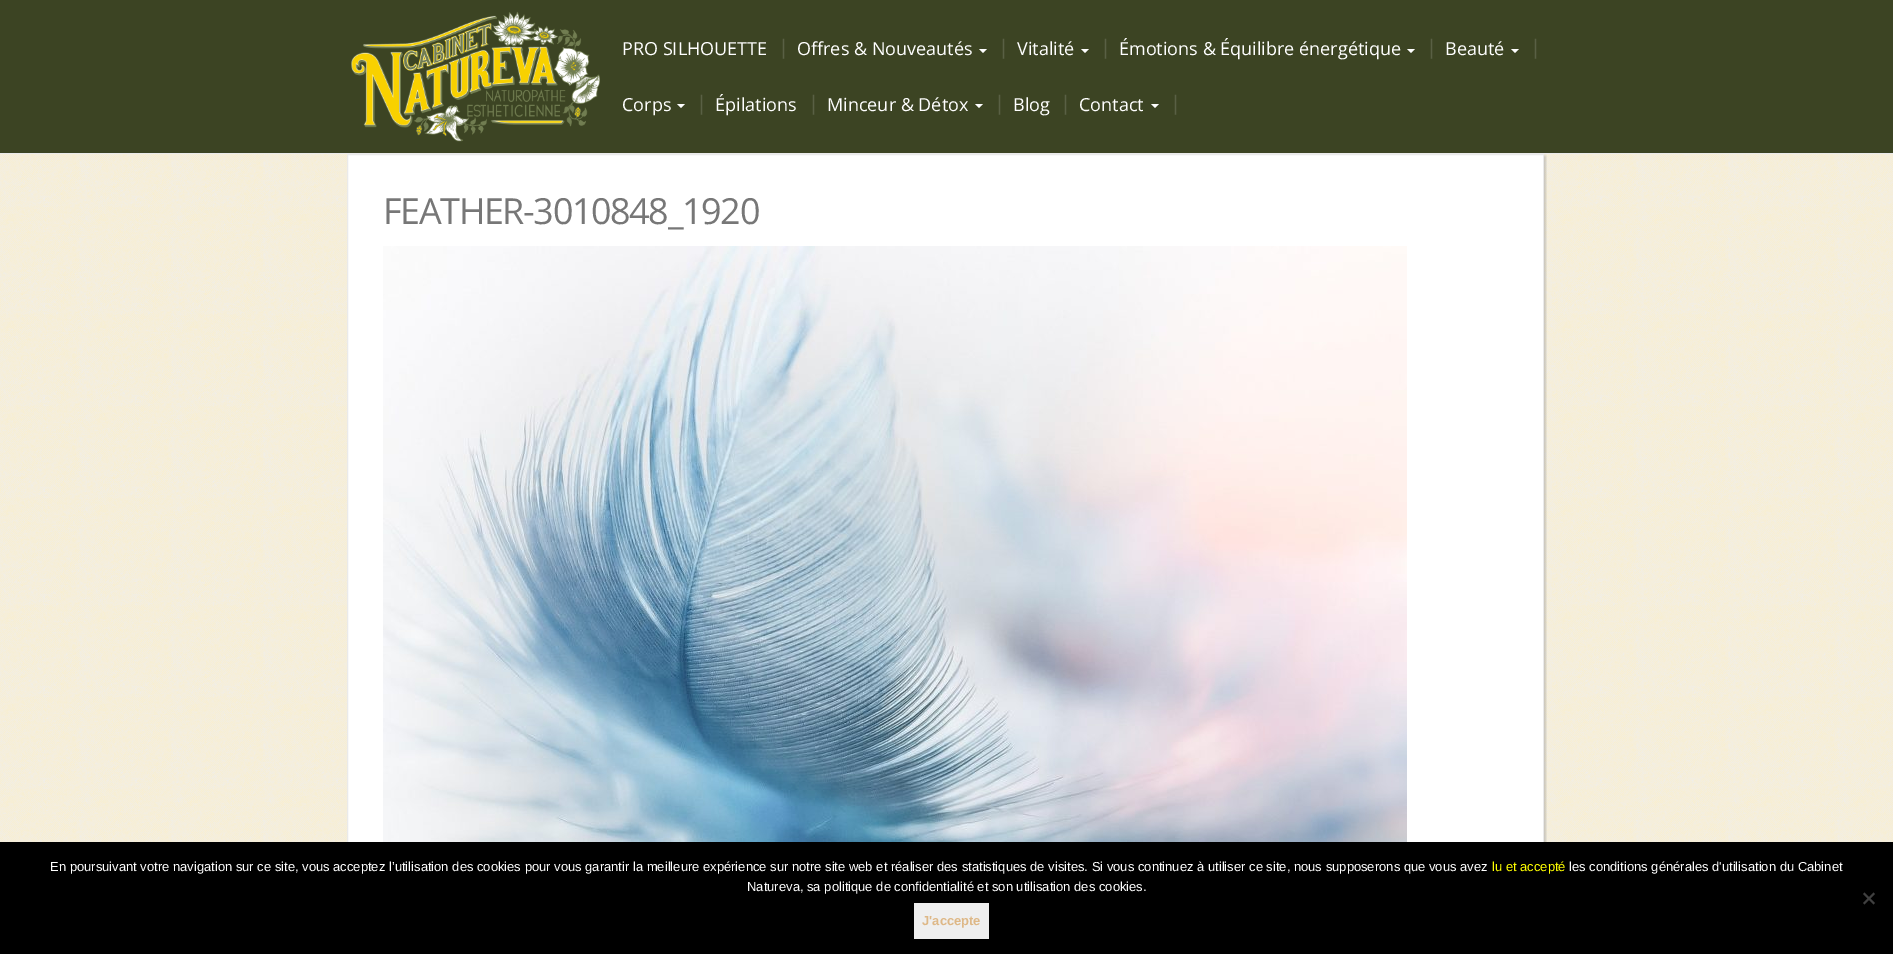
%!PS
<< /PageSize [1893 954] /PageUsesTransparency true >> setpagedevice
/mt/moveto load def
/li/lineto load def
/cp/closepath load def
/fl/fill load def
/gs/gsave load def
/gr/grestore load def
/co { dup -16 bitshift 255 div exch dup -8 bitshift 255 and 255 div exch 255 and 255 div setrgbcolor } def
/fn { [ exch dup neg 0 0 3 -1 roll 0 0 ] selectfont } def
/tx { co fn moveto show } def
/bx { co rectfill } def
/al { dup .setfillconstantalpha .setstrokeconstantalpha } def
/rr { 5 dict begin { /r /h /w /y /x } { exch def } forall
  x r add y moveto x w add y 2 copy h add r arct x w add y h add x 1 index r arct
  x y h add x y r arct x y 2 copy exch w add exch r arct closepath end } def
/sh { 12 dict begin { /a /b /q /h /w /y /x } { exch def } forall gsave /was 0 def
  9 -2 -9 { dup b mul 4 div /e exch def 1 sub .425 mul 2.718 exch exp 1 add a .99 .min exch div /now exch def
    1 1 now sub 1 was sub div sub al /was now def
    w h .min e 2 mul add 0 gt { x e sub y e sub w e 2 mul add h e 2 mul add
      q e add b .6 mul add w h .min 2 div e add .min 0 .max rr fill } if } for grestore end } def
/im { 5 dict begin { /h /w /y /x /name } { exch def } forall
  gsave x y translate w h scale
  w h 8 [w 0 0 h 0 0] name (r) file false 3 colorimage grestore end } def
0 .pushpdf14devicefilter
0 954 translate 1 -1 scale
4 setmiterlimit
0 0 1893 954 16#FFFFFF bx
(media/1.raw) 0 154 1893 688 im
0 0 1893 153 16#3C4423 bx
0 153 1893 1 16#EAEAEA bx
(media/2.raw) 351 11 249 131 im
16#FFFFFF co
979 49 mt 987 49 li 983 53 li cp fl
1081 49 mt 1089 49 li 1085 53 li cp fl
1407 49 mt 1415 49 li 1411 53 li cp fl
1511 49 mt 1519 49 li 1515 53 li cp fl
677 104 mt 685 104 li 681 108 li cp fl
975 104 mt 983 104 li 979 108 li cp fl
1151 104 mt 1159 104 li 1155 108 li cp fl
gs
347 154 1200 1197 rectclip
16#000000 co
347 157 1197 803 0 2 .5 sh
gr
348 155 1195 687 16#FFFFFF bx
16#EAEAEA co
347.5 154.5 1196 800 rectstroke
(media/3.raw) 383 246 1024 596 im
0 842 1893 112 16#000000 bx
16#404040 co
1873.5 892.5 mt 1875 894 li 1864.5 904.5 li 1863 903 li cp fl
1863 894 mt 1864.5 892.5 li 1875 903 li 1873.5 904.5 li cp fl
914 903 75 36 16#EFEFEF bx
(PRO SILHOUETTE) 622 55 /OpenSans-Regular 18 16#FFFFFF tx
(|) 778 54 /OpenSans-Regular 20 16#596044 tx
(Offres & Nouveautés) 797 55 /OpenSans-Regular 18 16#FFFFFF tx
(|) 998 54 /OpenSans-Regular 20 16#596044 tx
(Vitalité) 1017 55 /OpenSans-Regular 18 16#FFFFFF tx
(|) 1100 54 /OpenSans-Regular 20 16#596044 tx
(Émotions & Équilibre énergétique) 1119 55 /OpenSans-Regular 18 16#FFFFFF tx
(|) 1426 54 /OpenSans-Regular 20 16#596044 tx
(Beauté) 1445 55 /OpenSans-Regular 18 16#FFFFFF tx
(|) 1530 54 /OpenSans-Regular 20 16#596044 tx
(Corps) 622 111 /OpenSans-Regular 18 16#FFFFFF tx
(|) 696 110 /OpenSans-Regular 20 16#596044 tx
(Épilations) 715 111 /OpenSans-Regular 18 16#FFFFFF tx
(|) 808 110 /OpenSans-Regular 20 16#596044 tx
(Minceur & Détox) 827 111 /OpenSans-Regular 18 16#FFFFFF tx
(|) 994 110 /OpenSans-Regular 20 16#596044 tx
(Blog) 1013 111 /OpenSans-Regular 18 16#FFFFFF tx
(|) 1060 110 /OpenSans-Regular 20 16#596044 tx
(Contact) 1079 111 /OpenSans-Regular 18 16#FFFFFF tx
(|) 1170 110 /OpenSans-Regular 20 16#596044 tx
/OpenSans-Regular 36 fn
16#777777 co
383 224 mt -1.4 0 (FEATHER-3010848_1920) ashow
(En poursuivant votre navigation sur ce site, vous acceptez l’utilisation des cookies pour vous garantir la meilleure expérience sur notre site web et réaliser des statistiques de visites. Si vous continuez à utiliser ce site, nous supposerons que vous avez) 50 871 /LiberationSans-Regular 13 16#FFFFFF tx
(lu et accepté) 1492 871 /LiberationSans-Regular 13 16#FFFF00 tx
(les conditions générales d'utilisation du Cabinet) 1569 871 /LiberationSans-Regular 13 16#FFFFFF tx
(Natureva, sa politique de confidentialité et son utilisation des cookies.) 747 891 /LiberationSans-Regular 13 16#FFFFFF tx
(J'accepte) 922 925 /LiberationSans-Bold 13 16#DEB887 tx
.poppdf14devicefilter showpage
